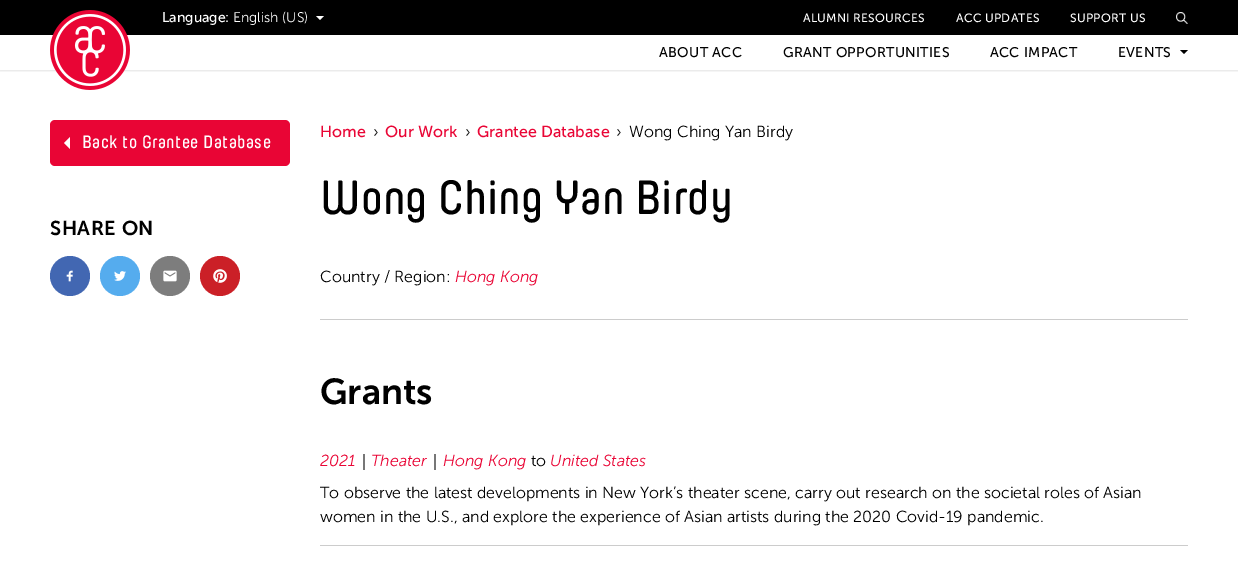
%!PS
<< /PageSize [1238 575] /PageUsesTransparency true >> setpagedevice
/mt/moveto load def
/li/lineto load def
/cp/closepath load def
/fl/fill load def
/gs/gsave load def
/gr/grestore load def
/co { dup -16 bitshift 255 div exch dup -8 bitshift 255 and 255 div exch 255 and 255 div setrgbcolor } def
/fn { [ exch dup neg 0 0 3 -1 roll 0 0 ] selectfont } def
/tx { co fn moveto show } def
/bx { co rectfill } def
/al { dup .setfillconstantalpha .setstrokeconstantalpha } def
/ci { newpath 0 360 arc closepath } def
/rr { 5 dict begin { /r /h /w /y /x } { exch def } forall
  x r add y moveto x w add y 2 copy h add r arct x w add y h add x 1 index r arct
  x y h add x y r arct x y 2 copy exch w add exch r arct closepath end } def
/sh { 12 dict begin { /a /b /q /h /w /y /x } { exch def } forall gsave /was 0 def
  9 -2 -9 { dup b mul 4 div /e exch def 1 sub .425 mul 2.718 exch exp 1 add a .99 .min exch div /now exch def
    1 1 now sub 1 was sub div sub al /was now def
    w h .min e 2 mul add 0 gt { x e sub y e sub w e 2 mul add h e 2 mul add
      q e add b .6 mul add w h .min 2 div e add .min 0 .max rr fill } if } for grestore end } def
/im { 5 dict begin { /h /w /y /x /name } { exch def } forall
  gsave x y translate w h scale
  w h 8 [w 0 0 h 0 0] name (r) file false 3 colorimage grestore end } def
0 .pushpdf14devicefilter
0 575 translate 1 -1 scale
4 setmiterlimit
0 0 1238 575 16#FFFFFF bx
0 0 1238 35 16#000000 bx
gs
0 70 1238 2 rectclip
16#646464 co
0 36 1238 35 0 1 .2 sh
gr
(media/1.raw) 50 10 80 80 im
16#FFFFFF co
316 16 mt 324 16 li 320 20 li cp fl
(media/2.raw) 1176 12 12 12 im
16#000000 co
1180 50 mt 1188 50 li 1184 54 li cp fl
16#E90535 co
50 120 240 46 5 rr fl
16#FFFFFF co
70 137 mt 70 149 li 64 143 li cp fl
16#4267B2 co
70 276 20 ci fl
(media/3.raw) 66 270 7 12 im
16#55ACEE co
120 276 20 ci fl
(media/4.raw) 114 271 12 10 im
16#7D7D7D co
170 276 20 ci fl
(media/5.raw) 163 270 14 12 im
16#CB2027 co
220 276 20 ci fl
(media/6.raw) 213 269 14 14 im
320 319 868 1 16#CCCCCC bx
320 545 868 1 16#CCCCCC bx
(Language:) 162 22 /MuseoSans-Regular 14 16#FFFFFF tx
(English \(US\)) 233 22 /MuseoSans-Light 14 16#FFFFFF tx
/MuseoSans-Regular 12 fn
803 22 mt .25 0 (ALUMNI RESOURCES) ashow
956 22 mt .25 0 (ACC UPDATES) ashow
1070 22 mt .25 0 (SUPPORT US) ashow
/MuseoSans-Regular 14 fn
16#000000 co
659 57 mt .3 0 (ABOUT ACC) ashow
783 57 mt .3 0 (GRANT OPPORTUNITIES) ashow
990 57 mt .3 0 (ACC IMPACT) ashow
1118 57 mt .3 0 (EVENTS) ashow
/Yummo-SemiBold 18 fn
16#FFFFFF co
82 148 mt .45 0 (Back to Grantee Database) ashow
/MuseoSans-SemiBold 20 fn
16#000000 co
50 235 mt .5 0 (SHARE ON) ashow
(Home) 320 137 /MuseoSans-Regular 16 16#E90535 tx
(›) 373 137 /MuseoSans-Light 16 16#000000 tx
(Our Work) 385 137 /MuseoSans-Regular 16 16#E90535 tx
(›) 465 137 /MuseoSans-Light 16 16#000000 tx
(Grantee Database) 477 137 /MuseoSans-Regular 16 16#E90535 tx
(›) 616 137 /MuseoSans-Light 16 16#000000 tx
(Wong Ching Yan Birdy) 629 137 /MuseoSans-Light 16 16#000000 tx
(Wong Ching Yan Birdy) 320 214 /Yummo-SemiBold 48 16#000000 tx
(Country / Region:) 320 282 /MuseoSans-Light 16 16#000000 tx
(Hong Kong) 455 282 /MuseoSans-LightItalic 16 16#E90535 tx
(Grants) 320 404 /MuseoSans-SemiBold 36 16#000000 tx
(2021) 320 466 /MuseoSans-LightItalic 16 16#E90535 tx
(｜) 356 466 /WenQuanYiZenHei-Medium 16 16#000000 tx
(Theater) 371 466 /MuseoSans-LightItalic 16 16#E90535 tx
(｜) 427 466 /WenQuanYiZenHei-Medium 16 16#000000 tx
(Hong Kong) 443 466 /MuseoSans-LightItalic 16 16#E90535 tx
(to) 531 466 /MuseoSans-Light 16 16#000000 tx
(United States) 550 466 /MuseoSans-LightItalic 16 16#E90535 tx
(To observe the latest developments in New York’s theater scene, carry out research on the societal roles of Asian) 320 498 /MuseoSans-Light 16 16#000000 tx
(women in the U.S., and explore the experience of Asian artists during the 2020 Covid-19 pandemic.) 320 522 /MuseoSans-Light 16 16#000000 tx
.poppdf14devicefilter showpage
